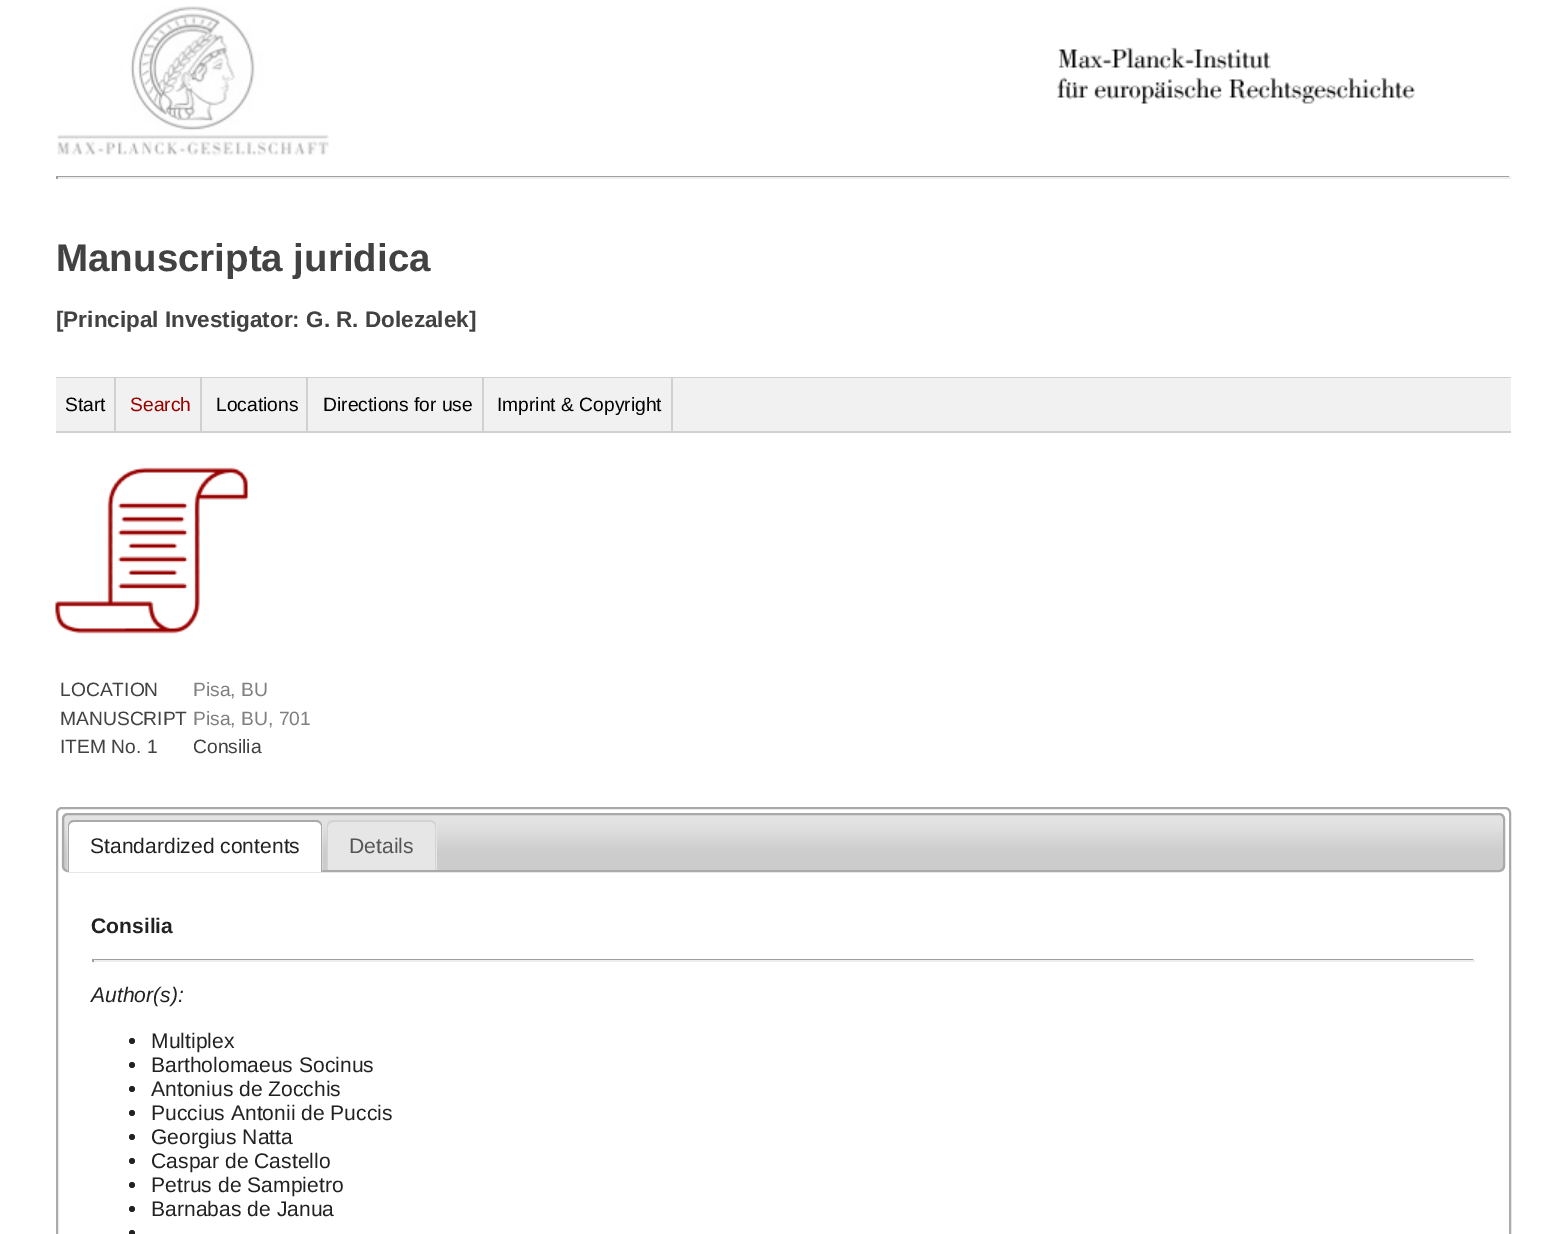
%!PS
<< /PageSize [1565 1234] >> setpagedevice
/mt/moveto load def
/li/lineto load def
/ct/curveto load def
/cp/closepath load def
/fl/fill load def
/st/stroke load def
/lw/setlinewidth load def
/co { dup -16 bitshift 255 div exch dup -8 bitshift 255 and 255 div exch 255 and 255 div setrgbcolor } def
/fn { [ exch dup neg 0 0 3 -1 roll 0 0 ] selectfont } def
/tx { co fn moveto show } def
/bx { co rectfill } def
/ci { newpath 0 360 arc closepath } def
/rr { 5 dict begin { /r /h /w /y /x } { exch def } forall
  x r add y moveto x w add y 2 copy h add r arct x w add y h add x 1 index r arct
  x y h add x y r arct x y 2 copy exch w add exch r arct closepath end } def
/im { 5 dict begin { /h /w /y /x /name } { exch def } forall
  gsave x y translate w h scale
  w h 8 [w 0 0 h 0 0] name (r) file false 3 colorimage grestore end } def
0 1234 translate 1 -1 scale
4 setmiterlimit
0 0 1565 1234 16#FFFFFF bx
(media/1.raw) 57 6 272 150 im
(media/2.raw) 1057 47 358 57 im
56 176 1455 1 16#9F9F9F bx
1509 176 2 3 16#EEEEEE bx
56 177 1455 2 16#EEEEEE bx
56 176 2 3 16#9F9F9F bx
56 377 1455 1 16#D0D0D0 bx
56 431 1455 2 16#D0D0D0 bx
56 378 1455 53 16#F1F1F1 bx
114 378 2 53 16#D0D0D0 bx
200 378 2 53 16#D0D0D0 bx
306 378 2 53 16#D0D0D0 bx
482 378 2 53 16#D0D0D0 bx
671 378 2 53 16#D0D0D0 bx
(media/3.raw) 55 467 193 167 im
16#AAAAAA co
2 lw
57 808 1453 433 5 rr st
(media/4.raw) 61 813 1444 58 im
63 814 1441 57 5 rr st
16#FFFFFF co
74 822 mt 316 822 li 319 822 321 824 321 827 ct 321 872 li 69 872 li 69 827 li 69 824 71 822 74 822 ct cp fl
(media/5.raw) 67 820 256 52 im
16#AAAAAA co
74 820 mt 316 820 li 320 820 322 823 322 826 ct 322 872 li 68 872 li 68 826 li 68 823 70 820 74 820 ct cp 74 822 mt 316 822 li 319 822 321 824 321 826 ct 321 872 li 69 872 li 69 826 li 69 824 71 822 74 822 ct cp eofill
16#E6E6E6 co
334 822 mt 430 822 li 433 822 435 824 435 827 ct 435 870 li 329 870 li 329 827 li 329 824 331 822 334 822 ct cp fl
327 824 110 46 16#E6E6E6 bx
16#D3D3D3 co
333 820 mt 430 820 li 434 820 436 823 436 826 ct 436 870 li 327 870 li 327 826 li 327 823 330 820 333 820 ct cp 333 822 mt 430 822 li 433 822 435 824 435 826 ct 435 870 li 328 870 li 328 826 li 328 824 331 822 333 822 ct cp eofill
92 959 1383 1 16#9F9F9F bx
1473 959 2 3 16#EEEEEE bx
92 960 1383 2 16#EEEEEE bx
92 959 2 3 16#9F9F9F bx
16#222222 co
132 1041 3 ci fl
132 1065 3 ci fl
132 1089 3 ci fl
132 1113 3 ci fl
132 1137 3 ci fl
132 1161 3 ci fl
132 1185 3 ci fl
132 1209 3 ci fl
132 1233 3 ci fl
(Manuscripta juridica) 56 271 /LiberationSans-Bold 38.5 16#424242 tx
([Principal Investigator: G. R. Dolezalek]) 56 327 /LiberationSans-Bold 22.5 16#424242 tx
(Start) 65 411 /LiberationSans-Regular 19.25 16#000000 tx
(Search) 130 411 /LiberationSans-Regular 19.25 16#990000 tx
(Locations) 216 411 /LiberationSans-Regular 19.25 16#000000 tx
(Directions for use) 323 411 /LiberationSans-Regular 19.25 16#000000 tx
(Imprint & Copyright) 497 411 /LiberationSans-Regular 19.25 16#000000 tx
(LOCATION) 60 696 /LiberationSans-Regular 19.25 16#424242 tx
(Pisa, BU) 193 696 /LiberationSans-Regular 19.25 16#808080 tx
(MANUSCRIPT) 60 725 /LiberationSans-Regular 19.25 16#424242 tx
(Pisa, BU, 701) 193 725 /LiberationSans-Regular 19.25 16#808080 tx
(ITEM No. 1) 60 753 /LiberationSans-Regular 19.25 16#424242 tx
(Consilia) 193 753 /LiberationSans-Regular 19.25 16#424242 tx
(Standardized contents) 90 853 /LiberationSans-Regular 21.1 16#222222 tx
(Details) 349 853 /LiberationSans-Regular 21.1 16#555555 tx
(Consilia) 91 933 /LiberationSans-Bold 21.1 16#222222 tx
(Author\(s\):) 91 1002 /LiberationSans-Italic 21.1 16#222222 tx
(Multiplex) 151 1048 /LiberationSans-Regular 21.1 16#222222 tx
(Bartholomaeus Socinus) 151 1072 /LiberationSans-Regular 21.1 16#222222 tx
(Antonius de Zocchis) 151 1096 /LiberationSans-Regular 21.1 16#222222 tx
(Puccius Antonii de Puccis) 151 1120 /LiberationSans-Regular 21.1 16#222222 tx
(Georgius Natta) 151 1144 /LiberationSans-Regular 21.1 16#222222 tx
(Caspar de Castello) 151 1168 /LiberationSans-Regular 21.1 16#222222 tx
(Petrus de Sampietro) 151 1192 /LiberationSans-Regular 21.1 16#222222 tx
(Barnabas de Janua) 151 1216 /LiberationSans-Regular 21.1 16#222222 tx
showpage
